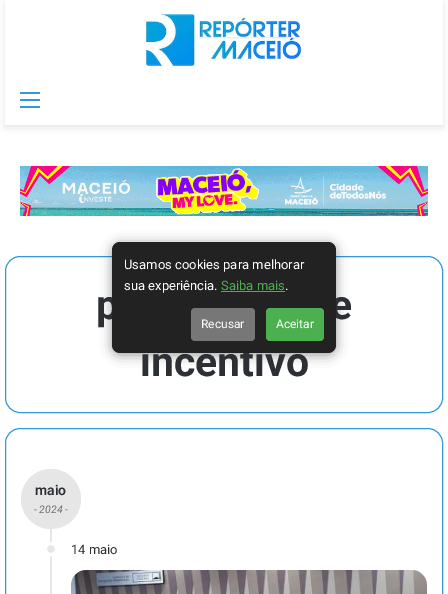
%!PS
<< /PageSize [448 594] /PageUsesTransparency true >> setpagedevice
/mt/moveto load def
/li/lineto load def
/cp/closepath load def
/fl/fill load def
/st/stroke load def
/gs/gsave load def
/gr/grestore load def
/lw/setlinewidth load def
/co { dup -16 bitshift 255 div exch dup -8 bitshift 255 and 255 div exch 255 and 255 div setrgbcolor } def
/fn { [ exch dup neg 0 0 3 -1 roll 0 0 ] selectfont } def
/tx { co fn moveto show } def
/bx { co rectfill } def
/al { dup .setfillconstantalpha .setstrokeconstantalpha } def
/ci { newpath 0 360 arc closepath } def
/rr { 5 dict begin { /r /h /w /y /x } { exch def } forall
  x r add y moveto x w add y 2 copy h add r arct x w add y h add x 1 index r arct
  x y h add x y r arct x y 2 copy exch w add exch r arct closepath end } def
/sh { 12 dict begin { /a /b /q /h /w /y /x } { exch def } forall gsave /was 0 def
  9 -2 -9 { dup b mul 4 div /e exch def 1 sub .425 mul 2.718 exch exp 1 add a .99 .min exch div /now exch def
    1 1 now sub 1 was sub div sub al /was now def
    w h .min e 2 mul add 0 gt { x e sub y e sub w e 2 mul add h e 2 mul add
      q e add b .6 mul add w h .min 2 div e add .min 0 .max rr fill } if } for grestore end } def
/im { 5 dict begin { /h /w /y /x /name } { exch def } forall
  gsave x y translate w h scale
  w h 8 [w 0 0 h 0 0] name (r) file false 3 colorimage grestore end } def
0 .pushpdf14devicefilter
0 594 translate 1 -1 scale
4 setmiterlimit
0 0 448 594 16#FFFFFF bx
16#3498DB co
5.5 256.5 437 156 14.5 rr st
16#000000 co
112 244 224 111 8 6 .4 sh
gs
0 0 mt 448 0 li 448 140 li 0 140 li cp 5 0 mt 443 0 li 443 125 li 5 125 li cp eoclip newpath
5 3 438 125 0 3.5 .1 sh
gr
(media/1.raw) 144 14 160 52 im
20 99 20 2 16#3498DB bx
20 92 20 2 16#3498DB bx
20 106 20 2 16#3498DB bx
(media/2.raw) 20 166 408 50 im
16#3699DB co
5.5 428.5 437 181 14.5 rr st
50 469 2 125 16#E6E6E6 bx
51 499 30 ci fl
51 549 5.5 ci gs fl gr
16#FFFFFF co
3 lw
st
(media/3.raw) 71 570 356 24 im
(p) 96 319 /Roboto-Bold 41 16#2C2F34 tx
(e) 330 319 /Roboto-Bold 41 16#2C2F34 tx
(incentivo) 140 376 /Roboto-Bold 41 16#2C2F34 tx
16#222222 co
112 242 224 111 8 rr fl
16#4CAF50 co
266 308 58 33 4 rr fl
(Aceitar) 276 328 /Roboto-Regular 12 16#FFFFFF tx
16#777777 co
191 308 64 33 4 rr fl
(Recusar) 201 328 /Roboto-Regular 12 16#FFFFFF tx
(.) 285 290 /Roboto-Regular 13 16#FFFFFF tx
(Saiba mais) 221 290 /Roboto-Regular 13 16#4CAF50 tx
221 291 64 1 16#4CAF50 bx
(sua experiência.) 124 290 /Roboto-Regular 13 16#FFFFFF tx
(Usamos cookies para melhorar) 124 269 /Roboto-Regular 13 16#FFFFFF tx
(maio) 35 495 /Roboto-SemiBold 14 16#2C2F34 tx
(- 2024 -) 34 513 /Roboto-Italic 10.5 16#6D6F72 tx
(14 maio) 71 554 /Roboto-Regular 13 16#2C2F34 tx
.poppdf14devicefilter showpage
